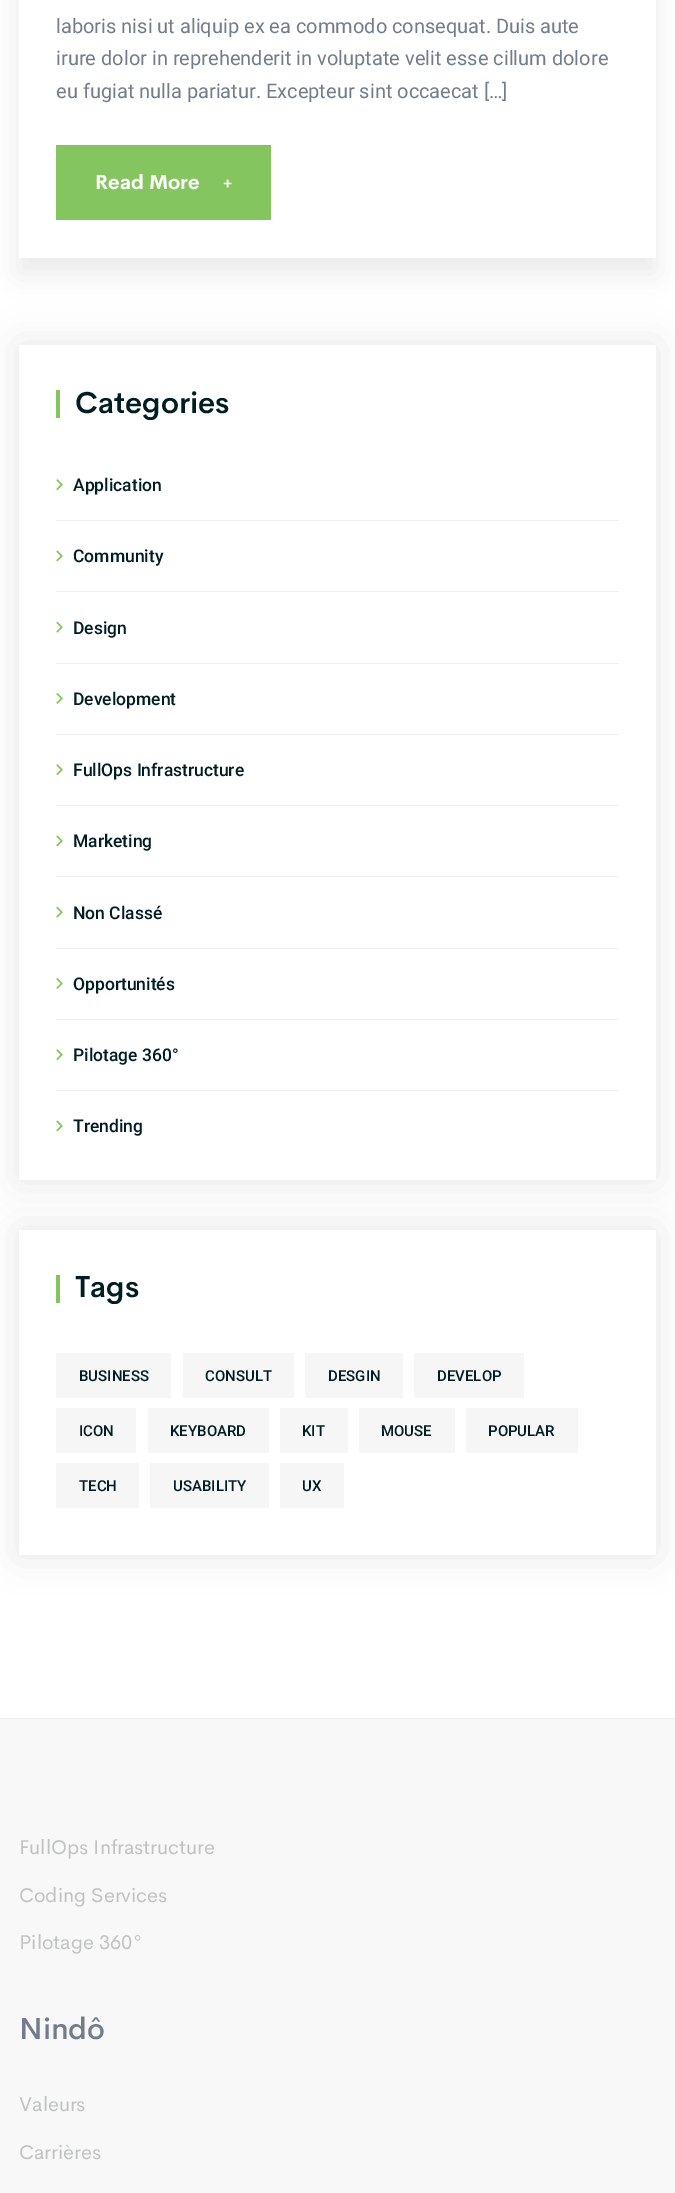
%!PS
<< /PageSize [675 2193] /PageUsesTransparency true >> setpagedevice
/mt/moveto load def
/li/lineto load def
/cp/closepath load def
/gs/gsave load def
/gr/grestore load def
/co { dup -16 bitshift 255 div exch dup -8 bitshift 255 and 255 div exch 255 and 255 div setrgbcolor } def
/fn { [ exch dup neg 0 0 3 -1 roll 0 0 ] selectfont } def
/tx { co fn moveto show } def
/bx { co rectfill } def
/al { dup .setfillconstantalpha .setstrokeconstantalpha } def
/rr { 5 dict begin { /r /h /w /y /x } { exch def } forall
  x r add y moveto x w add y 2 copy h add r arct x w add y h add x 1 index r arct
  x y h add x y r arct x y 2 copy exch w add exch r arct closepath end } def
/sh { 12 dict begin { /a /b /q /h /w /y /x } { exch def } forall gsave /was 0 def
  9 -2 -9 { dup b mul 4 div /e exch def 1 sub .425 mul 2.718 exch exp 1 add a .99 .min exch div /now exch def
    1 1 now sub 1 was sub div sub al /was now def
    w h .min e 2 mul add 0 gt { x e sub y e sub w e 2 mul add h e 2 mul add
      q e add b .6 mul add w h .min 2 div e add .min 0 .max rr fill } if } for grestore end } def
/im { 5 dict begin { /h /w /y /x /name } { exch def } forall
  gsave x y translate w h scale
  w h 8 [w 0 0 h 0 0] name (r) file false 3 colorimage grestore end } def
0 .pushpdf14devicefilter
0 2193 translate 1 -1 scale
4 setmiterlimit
0 0 675 2193 16#FFFFFF bx
16#000000 co
19 -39 637 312 0 13 .08 sh
19 0 637 258 16#FFFFFF bx
56 145 215 75 16#85C55F bx
gs
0 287 mt 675 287 li 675 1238 li 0 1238 li cp 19 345 mt 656 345 li 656 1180 li 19 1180 li cp eoclip newpath
16#000000 co
19 345 637 835 0 19 .1 sh
gr
56 390 4 28 16#85C55F bx
56 520 563 1 16#EFEFEF bx
(media/1.raw) 56 479 7 12 im
56 591 563 1 16#EFEFEF bx
(media/2.raw) 56 550 7 12 im
56 663 563 1 16#EFEFEF bx
(media/3.raw) 56 621 7 12 im
56 734 563 1 16#EFEFEF bx
(media/4.raw) 56 693 7 11 im
56 805 563 1 16#EFEFEF bx
(media/1.raw) 56 764 7 12 im
56 876 563 1 16#EFEFEF bx
(media/2.raw) 56 835 7 12 im
56 948 563 1 16#EFEFEF bx
(media/3.raw) 56 906 7 12 im
56 1019 563 1 16#EFEFEF bx
(media/4.raw) 56 978 7 11 im
56 1090 563 1 16#EFEFEF bx
(media/1.raw) 56 1049 7 12 im
(media/2.raw) 56 1120 7 12 im
gs
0 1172 mt 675 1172 li 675 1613 li 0 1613 li cp 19 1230 mt 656 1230 li 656 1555 li 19 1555 li cp eoclip newpath
16#000000 co
19 1230 637 325 0 19 .1 sh
gr
56 1275 4 28 16#85C55F bx
56 1353 115 45 16#F6F6F6 bx
183 1353 111 45 16#F6F6F6 bx
305 1353 98 45 16#F6F6F6 bx
414 1353 110 45 16#F6F6F6 bx
56 1408 80 45 16#F6F6F6 bx
148 1408 121 45 16#F6F6F6 bx
280 1408 68 45 16#F6F6F6 bx
359 1408 96 45 16#F6F6F6 bx
466 1408 112 45 16#F6F6F6 bx
56 1463 83 45 16#F6F6F6 bx
150 1463 119 45 16#F6F6F6 bx
280 1463 64 45 16#F6F6F6 bx
0 1719 675 474 16#F8F8F8 bx
0 1718 675 1 16#EEEEEE bx
(laboris nisi ut aliquip ex ea commodo consequat. Duis aute) 56 33 /Roboto-Regular 20 16#737C8C tx
(irure dolor in reprehenderit in voluptate velit esse cillum dolore) 56 65 /Roboto-Regular 20 16#737C8C tx
(eu fugiat nulla pariatur. Excepteur sint occaecat […]) 56 98 /Roboto-Regular 20 16#737C8C tx
(Read More) 95 189 /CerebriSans-Bold 20 16#FFFFFF tx
(+) 223 189 /CerebriSans-Bold 16 16#FFFFFF tx
(Categories) 75 413 /CerebriSans-SemiBold 30 16#001D23 tx
(Application) 73 491 /Roboto-Medium 17.5 16#001D23 tx
(Community) 73 562 /Roboto-Medium 17.5 16#001D23 tx
(Design) 73 634 /Roboto-Medium 17.5 16#001D23 tx
(Development) 73 705 /Roboto-Medium 17.5 16#001D23 tx
(FullOps Infrastructure) 73 776 /Roboto-Medium 17.5 16#001D23 tx
(Marketing) 73 847 /Roboto-Medium 17.5 16#001D23 tx
(Non Classé) 73 919 /Roboto-Medium 17.5 16#001D23 tx
(Opportunités) 73 990 /Roboto-Medium 17.5 16#001D23 tx
(Pilotage 360°) 73 1061 /Roboto-Medium 17.5 16#001D23 tx
(Trending) 73 1132 /Roboto-Medium 17.5 16#001D23 tx
(Tags) 75 1297 /CerebriSans-SemiBold 30 16#001D23 tx
(BUSINESS) 79 1381 /Roboto-Medium 15 16#001D23 tx
(CONSULT) 205 1381 /Roboto-Medium 15 16#001D23 tx
(DESGIN) 328 1381 /Roboto-Medium 15 16#001D23 tx
(DEVELOP) 437 1381 /Roboto-Medium 15 16#001D23 tx
(ICON) 79 1436 /Roboto-Medium 15 16#001D23 tx
(KEYBOARD) 170 1436 /Roboto-Medium 15 16#001D23 tx
(KIT) 302 1436 /Roboto-Medium 15 16#001D23 tx
(MOUSE) 381 1436 /Roboto-Medium 15 16#001D23 tx
(POPULAR) 488 1436 /Roboto-Medium 15 16#001D23 tx
(TECH) 79 1491 /Roboto-Medium 15 16#001D23 tx
(USABILITY) 173 1491 /Roboto-Medium 15 16#001D23 tx
(UX) 302 1491 /Roboto-Medium 15 16#001D23 tx
(FullOps Infrastructure) 19 1854 /CerebriSans-Regular 20 16#C0C1C2 tx
(Coding Services) 19 1902 /CerebriSans-Regular 20 16#C0C1C2 tx
(Pilotage 360°) 19 1949 /CerebriSans-Regular 20 16#C0C1C2 tx
(Nindô) 19 2039 /CerebriSans-Medium 30 16#737C8C tx
(Valeurs) 19 2111 /CerebriSans-Regular 20 16#C0C1C2 tx
(Carrières) 19 2159 /CerebriSans-Regular 20 16#C0C1C2 tx
.poppdf14devicefilter showpage
